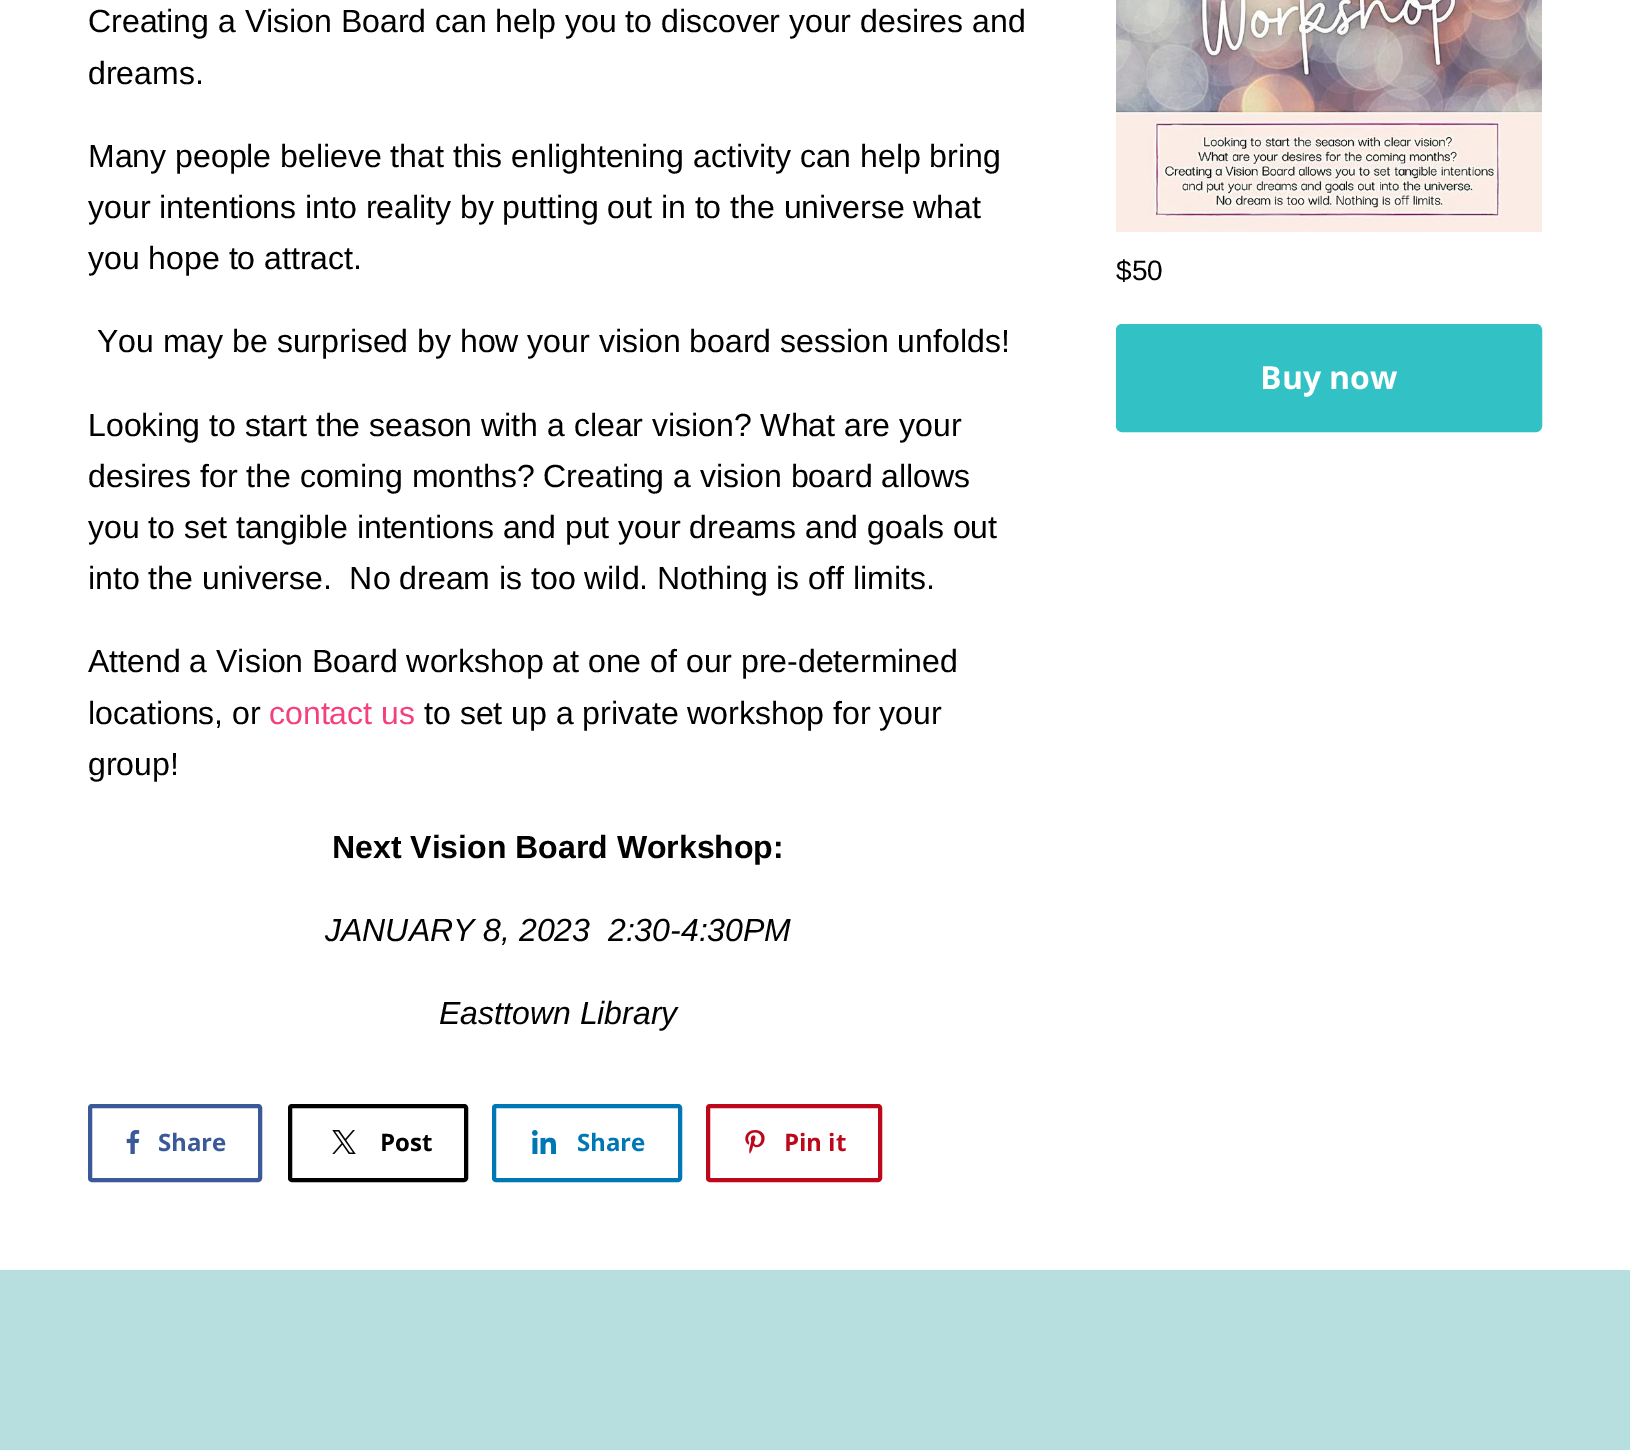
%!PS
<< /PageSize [1630 1450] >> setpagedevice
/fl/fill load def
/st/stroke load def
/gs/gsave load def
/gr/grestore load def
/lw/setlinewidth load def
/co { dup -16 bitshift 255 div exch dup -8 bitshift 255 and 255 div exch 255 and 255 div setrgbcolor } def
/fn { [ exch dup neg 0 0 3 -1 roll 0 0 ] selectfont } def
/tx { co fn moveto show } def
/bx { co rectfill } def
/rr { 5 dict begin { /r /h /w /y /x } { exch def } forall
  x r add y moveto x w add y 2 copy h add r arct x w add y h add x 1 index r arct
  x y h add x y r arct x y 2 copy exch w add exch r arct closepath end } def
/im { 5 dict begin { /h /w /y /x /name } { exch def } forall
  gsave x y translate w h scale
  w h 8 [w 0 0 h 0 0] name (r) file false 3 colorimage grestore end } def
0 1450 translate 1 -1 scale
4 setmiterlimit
0 0 1630 1450 16#FFFFFF bx
16#3B5998 co
4 lw
90 1106 170 74 2 rr st
(media/1.raw) 126 1130 14 24 im
16#000000 co
290 1106 176 74 2 rr st
(media/2.raw) 332 1130 24 24 im
16#0077B5 co
494 1106 186 74 2 rr st
(media/3.raw) 532 1130 24 24 im
16#BD081C co
708 1106 172 74 2 rr st
(media/4.raw) 745 1130 20 24 im
(media/5.raw) 1116 0 426 232 im
16#32C1C4 co
1118 326 422 104 4 rr gs fl gr
st
0 1270 1630 180 16#B8DFE0 bx
(Creating a Vision Board can help you to discover your desires and) 88 32 /LiberationSans-Regular 32 16#000000 tx
(dreams.) 88 84 /LiberationSans-Regular 32 16#000000 tx
(Many people believe that this enlightening activity can help bring) 88 167 /LiberationSans-Regular 32 16#000000 tx
(your intentions into reality by putting out in to the universe what) 88 218 /LiberationSans-Regular 32 16#000000 tx
(you hope to attract.) 88 269 /LiberationSans-Regular 32 16#000000 tx
(You may be surprised by how your vision board session unfolds!) 97 352 /LiberationSans-Regular 32 16#000000 tx
(Looking to start the season with a clear vision? What are your) 88 436 /LiberationSans-Regular 32 16#000000 tx
(desires for the coming months? Creating a vision board allows) 88 487 /LiberationSans-Regular 32 16#000000 tx
(you to set tangible intentions and put your dreams and goals out) 88 538 /LiberationSans-Regular 32 16#000000 tx
(into the universe.  No dream is too wild. Nothing is off limits.) 88 589 /LiberationSans-Regular 32 16#000000 tx
(Attend a Vision Board workshop at one of our pre-determined) 88 672 /LiberationSans-Regular 32 16#000000 tx
(locations, or) 88 724 /LiberationSans-Regular 32 16#000000 tx
(contact us) 269 724 /LiberationSans-Regular 32 16#F4417C tx
(to set up a private workshop for your) 424 724 /LiberationSans-Regular 32 16#000000 tx
(group!) 88 775 /LiberationSans-Regular 32 16#000000 tx
(Next Vision Board Workshop:) 332 858 /LiberationSans-Bold 32 16#000000 tx
(JANUARY 8, 2023  2:30-4:30PM) 325 941 /LiberationSans-Italic 32 16#000000 tx
(Easttown Library) 439 1024 /LiberationSans-Italic 32 16#000000 tx
(Share) 158 1151 /OpenSans-Bold 24 16#3B5998 tx
(Post) 380 1151 /OpenSans-Bold 24 16#000000 tx
(Share) 577 1151 /OpenSans-Bold 24 16#0077B5 tx
(Pin it) 784 1151 /OpenSans-Bold 24 16#BD081C tx
($50) 1116 280 /LiberationSans-Regular 28 16#000000 tx
(Buy now) 1260 389 /OpenSans-Bold 32 16#FFFFFF tx
showpage
